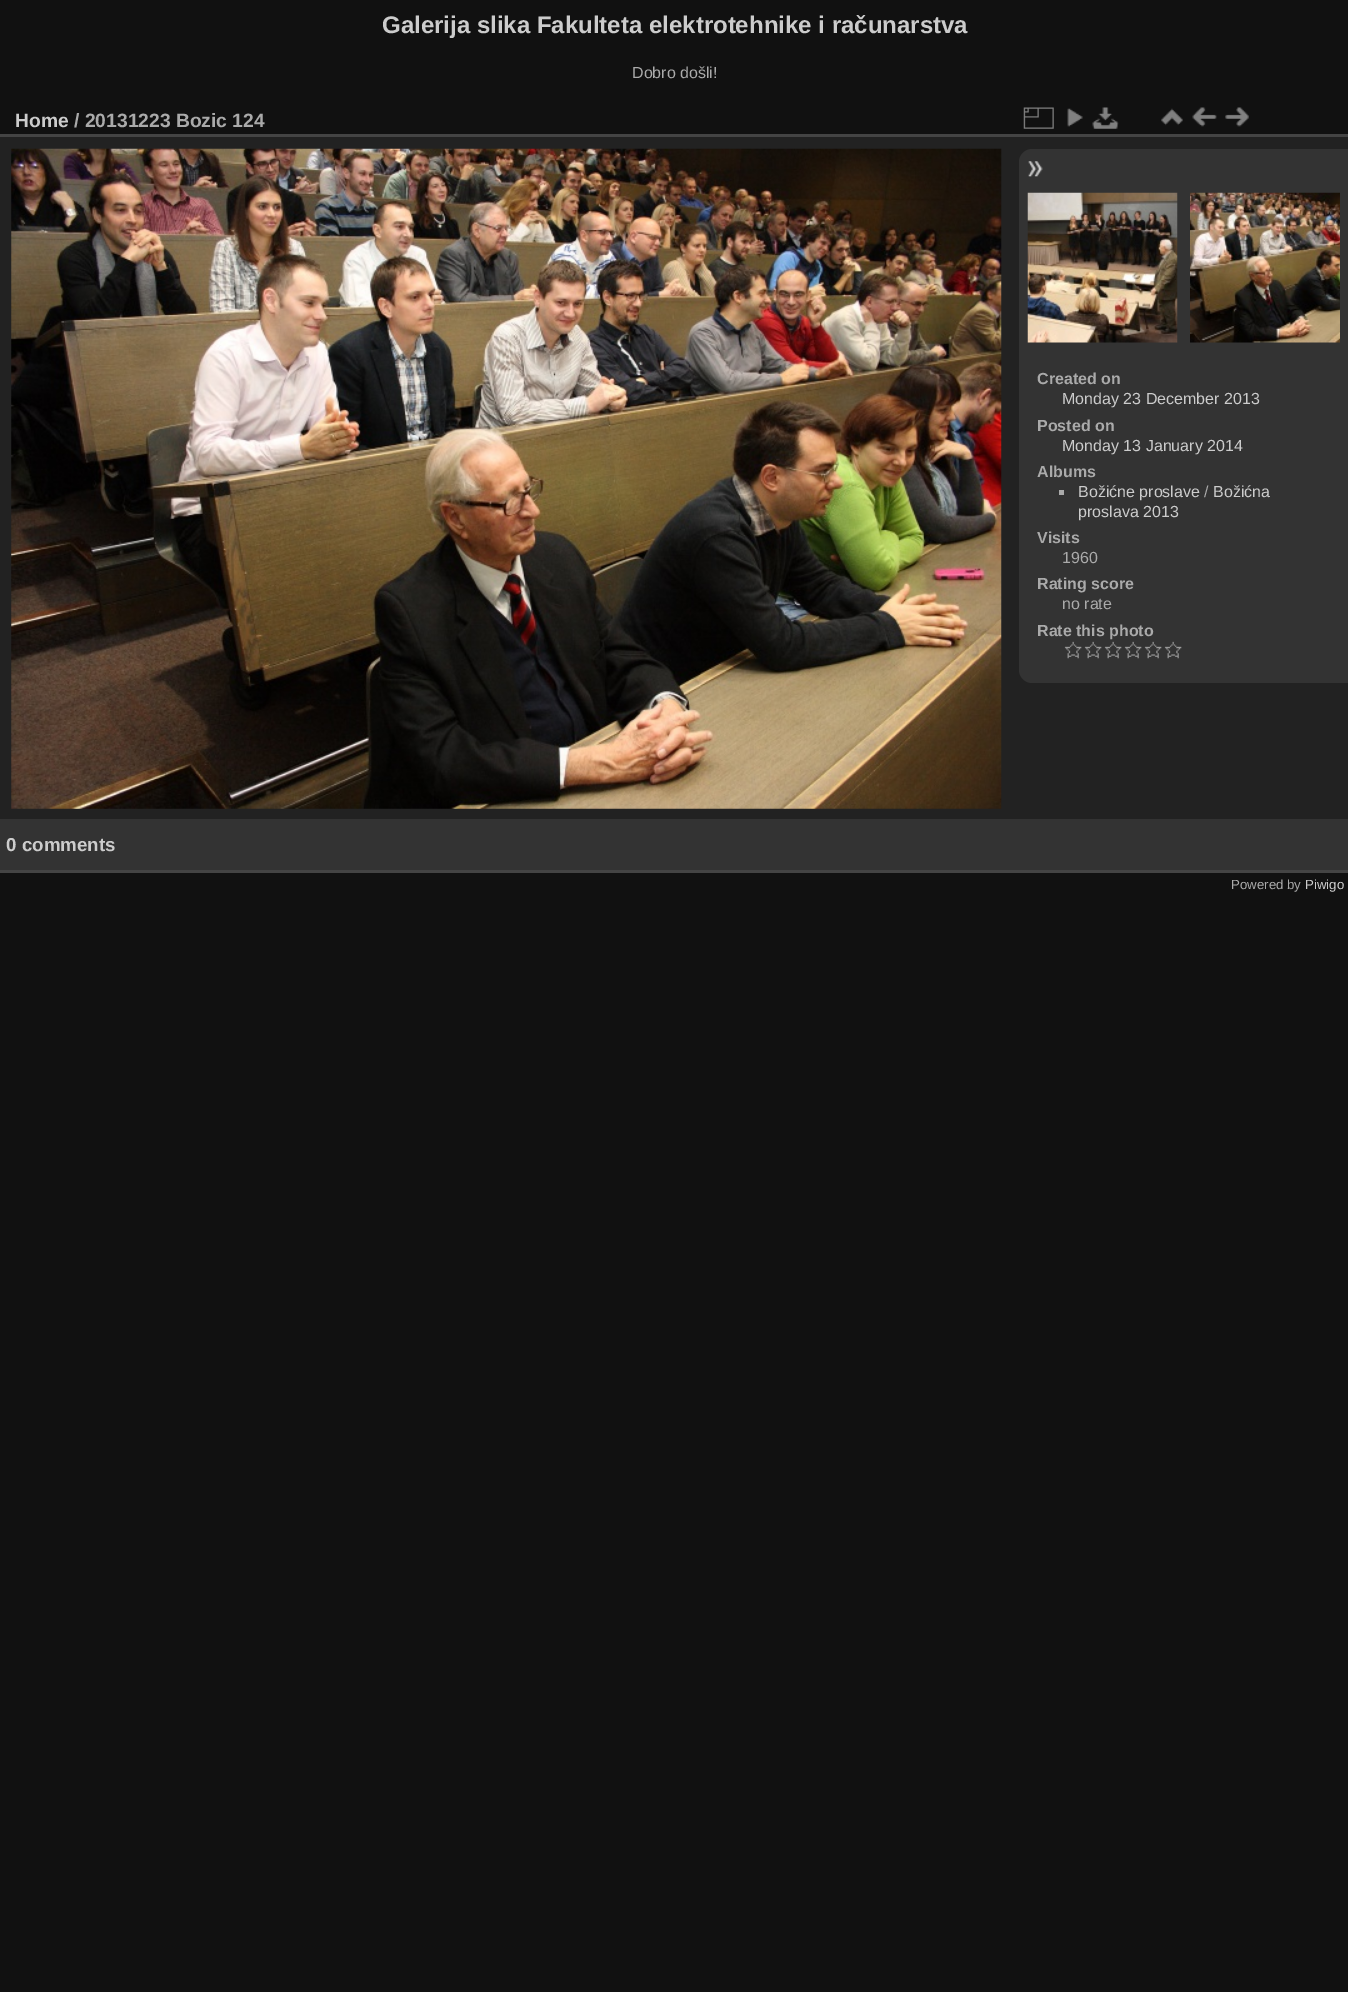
%!PS
<< /PageSize [1348 1992] >> setpagedevice
/mt/moveto load def
/li/lineto load def
/ct/curveto load def
/cp/closepath load def
/fl/fill load def
/co { dup -16 bitshift 255 div exch dup -8 bitshift 255 and 255 div exch 255 and 255 div setrgbcolor } def
/fn { [ exch dup neg 0 0 3 -1 roll 0 0 ] selectfont } def
/tx { co fn moveto show } def
/bx { co rectfill } def
/im { 5 dict begin { /h /w /y /x /name } { exch def } forall
  gsave x y translate w h scale
  w h 8 [w 0 0 h 0 0] name (r) file false 3 colorimage grestore end } def
0 1992 translate 1 -1 scale
4 setmiterlimit
0 0 1348 1992 16#111111 bx
0 137 1348 682 16#222222 bx
0 870 1348 3 16#444444 bx
0 134 1348 3 16#444444 bx
(media/1.raw) 1023 107 31 22 im
(media/2.raw) 1067 108 16 19 im
(media/3.raw) 1092 107 27 22 im
(media/4.raw) 1161 108 22 18 im
(media/5.raw) 1192 107 25 20 im
(media/6.raw) 1225 107 24 20 im
(media/7.raw) 11 148 991 661 im
16#333333 co
1032 149 mt 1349 149 li 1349 683 li 1032 683 li 1025 683 1019 677 1019 670 ct 1019 162 li 1019 155 1025 149 1032 149 ct cp fl
(media/8.raw) 1028 161 15 16 im
(media/9.raw) 1027 192 151 151 im
(media/10.raw) 1190 192 150 151 im
1059 490 5 5 16#AAAAAA bx
(media/11.raw) 1064 641 18 18 im
(media/11.raw) 1084 641 18 18 im
(media/11.raw) 1104 641 18 18 im
(media/11.raw) 1124 641 18 18 im
(media/11.raw) 1144 641 18 18 im
(media/11.raw) 1164 641 18 18 im
0 819 1348 51 16#333333 bx
(Galerija slika Fakulteta elektrotehnike i računarstva) 382 33 /LiberationSans-Bold 24 16#CCCCCC tx
(Dobro došli!) 632 78 /LiberationSans-Regular 16 16#AAAAAA tx
(Home) 15 127 /LiberationSans-Bold 19.25 16#CCCCCC tx
(/ 20131223 Bozic 124) 74 127 /LiberationSans-Bold 19.25 16#AAAAAA tx
(Created on) 1037 384 /LiberationSans-Bold 16 16#AAAAAA tx
(Monday 23 December 2013) 1062 404 /LiberationSans-Regular 16 16#CCCCCC tx
(Posted on) 1037 431 /LiberationSans-Bold 16 16#AAAAAA tx
(Monday 13 January 2014) 1062 451 /LiberationSans-Regular 16 16#CCCCCC tx
(Albums) 1037 477 /LiberationSans-Bold 16 16#AAAAAA tx
(Božićne proslave) 1078 497 /LiberationSans-Regular 16 16#CCCCCC tx
(/) 1204 497 /LiberationSans-Regular 16 16#AAAAAA tx
(Božićna) 1213 497 /LiberationSans-Regular 16 16#CCCCCC tx
(proslava 2013) 1078 517 /LiberationSans-Regular 16 16#CCCCCC tx
(Visits) 1037 543 /LiberationSans-Bold 16 16#AAAAAA tx
(1960) 1062 563 /LiberationSans-Regular 16 16#AAAAAA tx
(Rating score) 1037 589 /LiberationSans-Bold 16 16#AAAAAA tx
(no rate) 1062 609 /LiberationSans-Regular 16 16#AAAAAA tx
(Rate this photo) 1037 636 /LiberationSans-Bold 16 16#AAAAAA tx
(0 comments) 6 851 /LiberationSans-Bold 18.75 16#CCCCCC tx
(Powered by) 1231 889 /LiberationSans-Regular 13.25 16#AAAAAA tx
(Piwigo) 1305 889 /LiberationSans-Regular 13.25 16#CCCCCC tx
showpage
